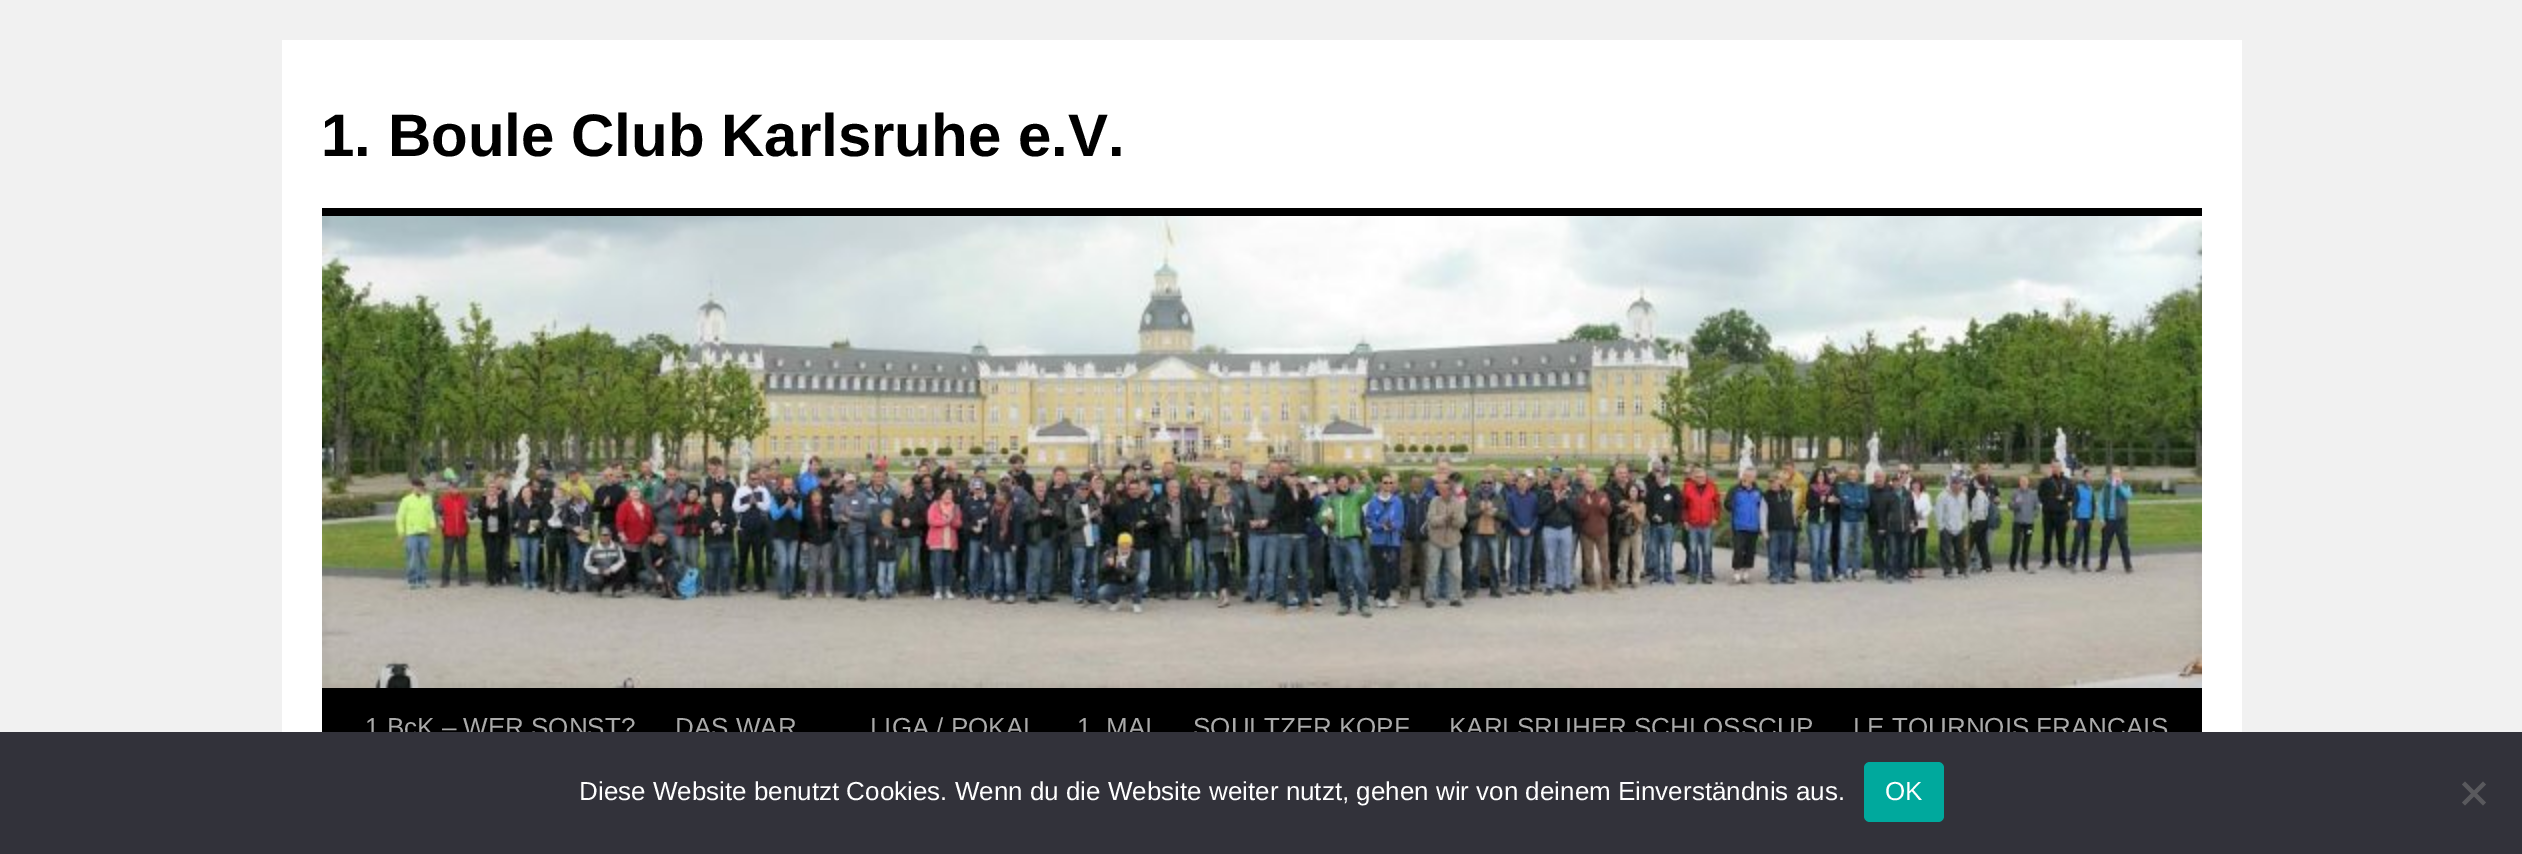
%!PS
<< /PageSize [2522 854] >> setpagedevice
/mt/moveto load def
/li/lineto load def
/cp/closepath load def
/fl/fill load def
/co { dup -16 bitshift 255 div exch dup -8 bitshift 255 and 255 div exch 255 and 255 div setrgbcolor } def
/fn { [ exch dup neg 0 0 3 -1 roll 0 0 ] selectfont } def
/tx { co fn moveto show } def
/bx { co rectfill } def
/rr { 5 dict begin { /r /h /w /y /x } { exch def } forall
  x r add y moveto x w add y 2 copy h add r arct x w add y h add x 1 index r arct
  x y h add x y r arct x y 2 copy exch w add exch r arct closepath end } def
/im { 5 dict begin { /h /w /y /x /name } { exch def } forall
  gsave x y translate w h scale
  w h 8 [w 0 0 h 0 0] name (r) file false 3 colorimage grestore end } def
0 854 translate 1 -1 scale
4 setmiterlimit
0 0 2522 854 16#F1F1F1 bx
282 40 1960 692 16#FFFFFF bx
322 208 1880 8 16#000000 bx
322 688 1880 44 16#000000 bx
(media/1.raw) 322 216 1880 472 im
(1. Boule Club Karlsruhe e.V.) 321 156 /LiberationSans-Bold 60 16#000000 tx
(1 BcK – WER SONST?) 365 736 /LiberationSans-Regular 26 16#AAAAAA tx
(DAS WAR) 675 736 /LiberationSans-Regular 26 16#AAAAAA tx
(LIGA / POKAL) 870 736 /LiberationSans-Regular 26 16#AAAAAA tx
(1. MAI) 1077 736 /LiberationSans-Regular 26 16#AAAAAA tx
(SOULTZER KOPF) 1193 736 /LiberationSans-Regular 26 16#AAAAAA tx
(KARLSRUHER SCHLOSSCUP) 1449 736 /LiberationSans-Regular 26 16#AAAAAA tx
(LE TOURNOIS FRANCAIS) 1853 736 /LiberationSans-Regular 26 16#AAAAAA tx
0 732 2522 122 16#32323A bx
(Diese Website benutzt Cookies. Wenn du die Website weiter nutzt, gehen wir von deinem Einverständnis aus.) 579 800 /LiberationSans-Regular 26 16#FFFFFF tx
16#00A99D co
1864 762 80 60 6 rr fl
(OK) 1885 800 /LiberationSans-Regular 26 16#FFFFFF tx
16#59595D co
2483 781.5 mt 2486 784.5 li 2465 805.5 li 2462 802.5 li cp fl
2462 784.5 mt 2465 781.5 li 2486 802.5 li 2483 805.5 li cp fl
showpage
